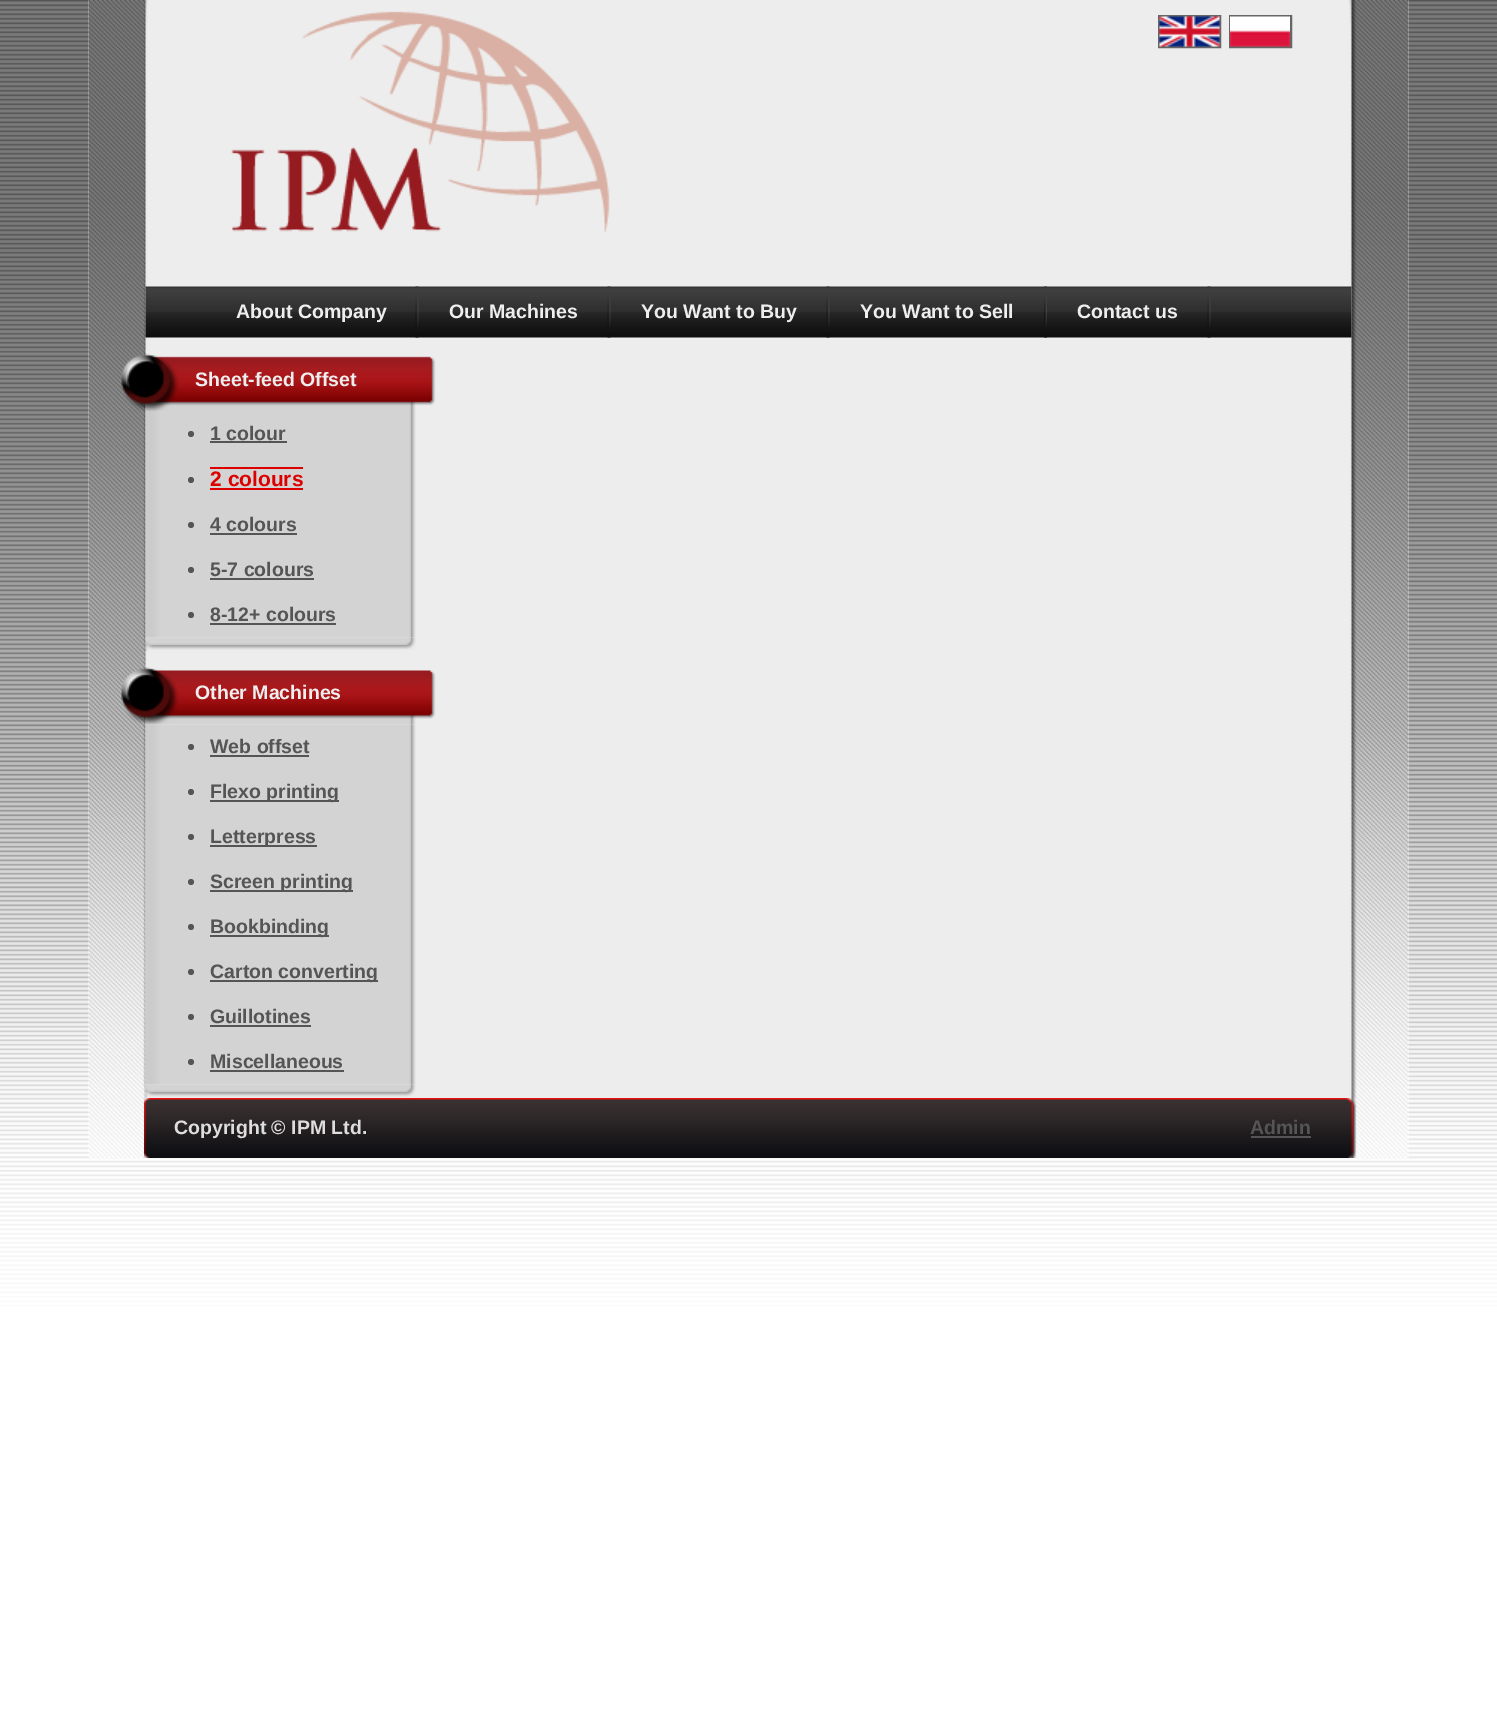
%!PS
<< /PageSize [1497 1735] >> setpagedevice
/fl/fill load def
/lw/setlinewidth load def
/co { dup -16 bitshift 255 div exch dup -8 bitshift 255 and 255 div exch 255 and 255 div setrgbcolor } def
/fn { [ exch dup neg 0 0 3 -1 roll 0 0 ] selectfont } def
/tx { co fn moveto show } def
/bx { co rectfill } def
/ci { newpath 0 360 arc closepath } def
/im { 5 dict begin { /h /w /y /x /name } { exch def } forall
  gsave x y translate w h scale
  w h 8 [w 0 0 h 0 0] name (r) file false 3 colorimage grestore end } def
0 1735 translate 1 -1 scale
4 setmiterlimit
0 0 1497 1735 16#FFFFFF bx
(media/1.raw) 0 0 1497 1306 im
(media/2.raw) 1408 0 1 1158 im
(media/3.raw) 88 0 1321 1158 im
(media/4.raw) 88 0 1321 1158 im
(media/5.raw) 231 11 379 222 im
16#666666 co
2 lw
1159 16 61 31 rectstroke
1230 16 61 31 rectstroke
(media/6.raw) 1159 16 61 31 im
(media/7.raw) 1230 16 60 31 im
(media/8.raw) 145 286 1207 52 im
(media/9.raw) 415 286 4 52 im
(media/9.raw) 607 286 4 52 im
(media/9.raw) 826 286 4 52 im
(media/10.raw) 1044 286 3 52 im
(media/9.raw) 1207 286 4 52 im
(media/11.raw) 121 353 315 58 im
(media/12.raw) 143 411 273 227 im
16#555555 co
191 434 3 ci fl
210 441 77 2 16#555555 bx
191 480 3 ci fl
210 488 93 2 16#DD0000 bx
210 467 93 2 16#DD0000 bx
16#555555 co
191 525 3 ci fl
210 533 87 2 16#555555 bx
191 570 3 ci fl
210 578 104 2 16#555555 bx
191 615 3 ci fl
210 623 126 2 16#555555 bx
(media/13.raw) 144 637 272 14 im
(media/14.raw) 121 667 315 58 im
(media/15.raw) 143 724 273 361 im
191 747 3 ci fl
210 755 99 2 16#555555 bx
191 792 3 ci fl
210 800 129 2 16#555555 bx
191 837 3 ci fl
210 845 107 2 16#555555 bx
191 882 3 ci fl
210 890 143 2 16#555555 bx
191 927 3 ci fl
210 935 119 2 16#555555 bx
191 972 3 ci fl
210 980 168 2 16#555555 bx
191 1017 3 ci fl
210 1025 101 2 16#555555 bx
191 1062 3 ci fl
210 1070 134 2 16#555555 bx
(media/16.raw) 144 1084 272 14 im
(media/17.raw) 144 1098 1212 60 im
1251 1136 60 2 16#555555 bx
(About Company) 236 318 /LiberationSans-Bold 19.5 16#EEEEEE tx
(Our Machines) 449 318 /LiberationSans-Bold 19.5 16#EEEEEE tx
(You Want to Buy) 641 318 /LiberationSans-Bold 19.5 16#EEEEEE tx
(You Want to Sell) 860 318 /LiberationSans-Bold 19.5 16#EEEEEE tx
(Contact us) 1077 318 /LiberationSans-Bold 19.5 16#EEEEEE tx
(Sheet-feed Offset) 195 386 /LiberationSans-Bold 19.5 16#EEEEEE tx
(1 colour) 210 440 /LiberationSans-Bold 19.5 16#555555 tx
(2 colours) 210 486 /LiberationSans-Bold 21 16#DD0000 tx
(4 colours) 210 531 /LiberationSans-Bold 19.5 16#555555 tx
(5-7 colours) 210 576 /LiberationSans-Bold 19.5 16#555555 tx
(8-12+ colours) 210 621 /LiberationSans-Bold 19.5 16#555555 tx
(Other Machines) 195 699 /LiberationSans-Bold 19.5 16#EEEEEE tx
(Web offset) 210 753 /LiberationSans-Bold 19.5 16#555555 tx
(Flexo printing) 210 798 /LiberationSans-Bold 19.5 16#555555 tx
(Letterpress) 210 843 /LiberationSans-Bold 19.5 16#555555 tx
(Screen printing) 210 888 /LiberationSans-Bold 19.5 16#555555 tx
(Bookbinding) 210 933 /LiberationSans-Bold 19.5 16#555555 tx
(Carton converting) 210 978 /LiberationSans-Bold 19.5 16#555555 tx
(Guillotines) 210 1023 /LiberationSans-Bold 19.5 16#555555 tx
(Miscellaneous) 210 1068 /LiberationSans-Bold 19.5 16#555555 tx
(Copyright © IPM Ltd.) 174 1134 /LiberationSans-Bold 19.5 16#DDDDDD tx
(Admin) 1250 1134 /LiberationSans-Bold 19.5 16#555555 tx
showpage
